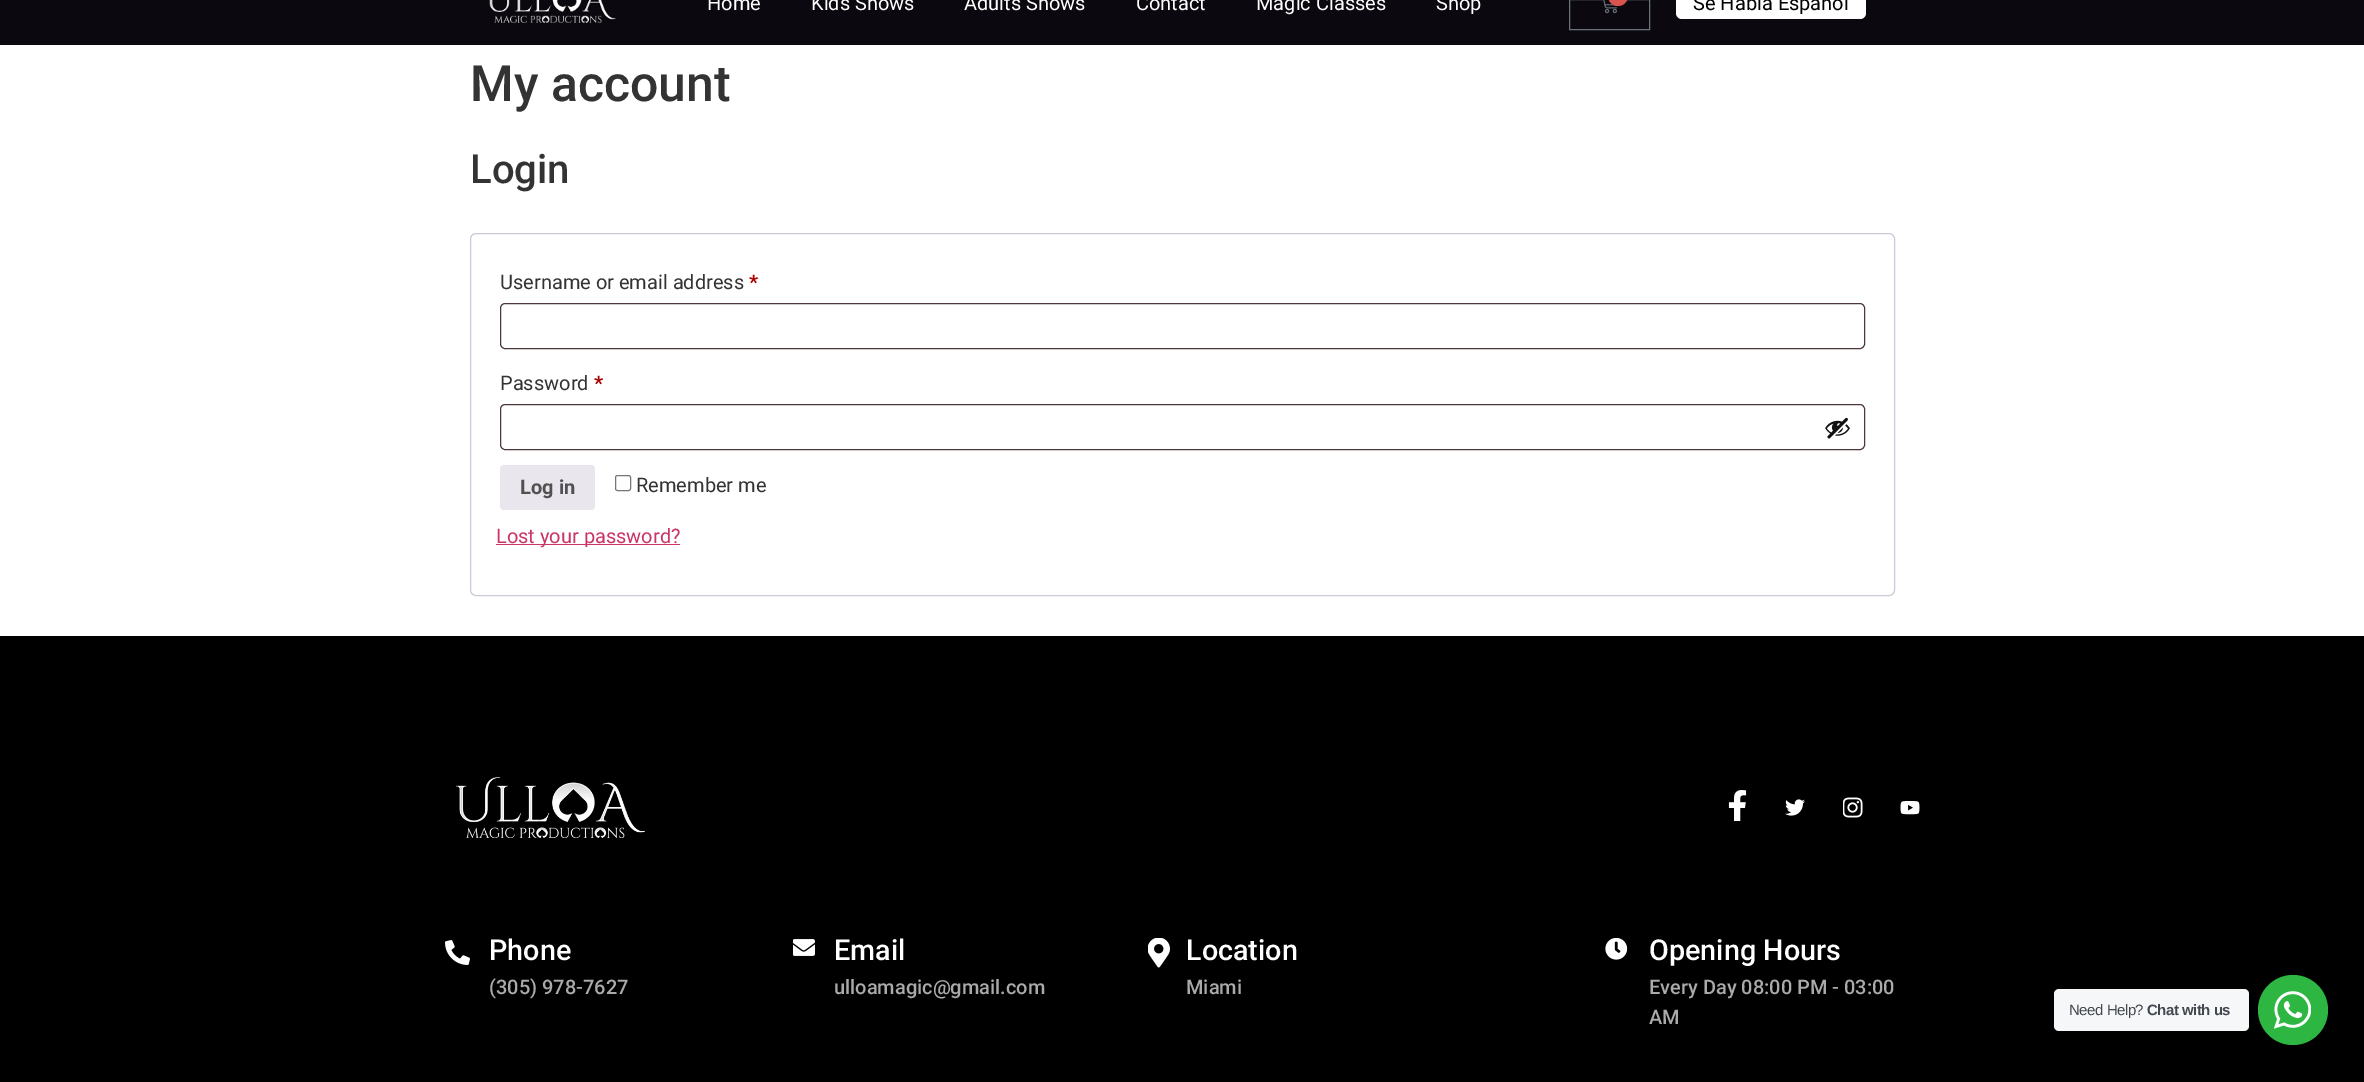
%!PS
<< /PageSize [2364 1082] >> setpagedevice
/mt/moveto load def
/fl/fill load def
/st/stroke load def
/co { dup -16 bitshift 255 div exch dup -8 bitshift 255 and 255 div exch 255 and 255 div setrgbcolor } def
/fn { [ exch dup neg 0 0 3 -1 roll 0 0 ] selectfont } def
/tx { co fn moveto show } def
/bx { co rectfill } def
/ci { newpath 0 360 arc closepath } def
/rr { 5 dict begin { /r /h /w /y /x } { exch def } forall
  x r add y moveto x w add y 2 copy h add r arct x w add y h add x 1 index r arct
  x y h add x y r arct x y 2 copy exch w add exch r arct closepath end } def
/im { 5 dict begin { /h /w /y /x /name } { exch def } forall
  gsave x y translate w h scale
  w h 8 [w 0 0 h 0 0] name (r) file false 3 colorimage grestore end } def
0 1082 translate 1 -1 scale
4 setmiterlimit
0 0 2364 1082 16#FFFFFF bx
0 0 2364 45 16#0B080F bx
(media/1.raw) 489 0 127 24 im
16#69727D co
1569.5 -.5 80 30 rectstroke
(media/2.raw) 1603 0 14 14 im
16#D9534F co
1608 -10 20 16 10 rr fl
16#FFFFFF co
1676 -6 190 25 6 rr fl
16#CFC8D8 co
470.5 233.5 1424 362 5.5 rr st
16#4D3939 co
500.5 303.5 1364 45 4.5 rr st
500.5 404.5 1364 45 4.5 rr st
(media/3.raw) 1825 417 25 22 im
16#E9E6ED co
500 465 95 45 4 rr fl
16#767676 co
615.5 475.5 15 15 2 rr st
496 544 184 1 16#CC3366 bx
0 636 2364 446 16#000000 bx
(media/4.raw) 456 777 189 61 im
(media/5.raw) 1728 790 19 31 im
(media/6.raw) 1785 799 20 17 im
(media/7.raw) 1843 797 20 21 im
(media/8.raw) 1900 801 20 14 im
(media/9.raw) 445 940 25 25 im
(media/10.raw) 793 939 22 17 im
(media/11.raw) 1148 938 22 30 im
(media/12.raw) 1605 938 23 22 im
16#F5F7F9 co
2054 989 195 42 5 rr fl
16#2DB742 co
2293 1010 35 ci fl
(media/13.raw) 2274 991 37 38 im
(Home) 707 10 /Roboto-Regular 20 16#FFFFFF tx
(Kids Shows) 811 10 /Roboto-Regular 20 16#FFFFFF tx
(Adults Shows) 964 10 /Roboto-Regular 20 16#FFFFFF tx
(Contact) 1136 10 /Roboto-Regular 20 16#FFFFFF tx
(Magic Classes) 1256 10 /Roboto-Regular 20 16#FFFFFF tx
(Shop) 1436 10 /Roboto-Regular 20 16#FFFFFF tx
(Se Habla Español) 1693 10 /Roboto-Regular 20 16#000000 tx
(My account) 470 101 /Roboto-Medium 50 16#333333 tx
(Login) 470 183 /Roboto-Medium 40 16#333333 tx
(Username or email address) 500 289 /Roboto-Regular 20 16#333333 tx
(*) 749 289 /Roboto-Bold 20 16#AA0000 tx
(Password) 500 390 /Roboto-Regular 20 16#333333 tx
(*) 594 390 /Roboto-Bold 20 16#AA0000 tx
(Log in) 520 494 /Roboto-Bold 20 16#515151 tx
(Remember me) 636 492 /Roboto-Regular 20 16#333333 tx
(Lost your password?) 496 543 /Roboto-Regular 20 16#CC3366 tx
(Phone) 489 960 /Roboto-Medium 28.75 16#FFFFFF tx
(\(305\) 978-7627) 489 994 /Roboto-Medium 20 16#AAAAAA tx
(Email) 834 960 /Roboto-Medium 28.75 16#FFFFFF tx
(ulloamagic@gmail.com) 834 994 /Roboto-Medium 20 16#AAAAAA tx
(Location) 1186 960 /Roboto-Medium 28.75 16#FFFFFF tx
(Miami) 1186 994 /Roboto-Medium 20 16#AAAAAA tx
(Opening Hours) 1649 960 /Roboto-Medium 28.75 16#FFFFFF tx
(Every Day 08:00 PM - 03:00) 1649 994 /Roboto-Medium 20 16#AAAAAA tx
(AM) 1649 1024 /Roboto-Medium 20 16#AAAAAA tx
/LiberationSans-Regular 15 fn
16#43474E co
2069 1015 mt -.5 0 (Need Help?) ashow
/LiberationSans-Bold 15 fn
2147 1015 mt -.5 0 (Chat with us) ashow
showpage
